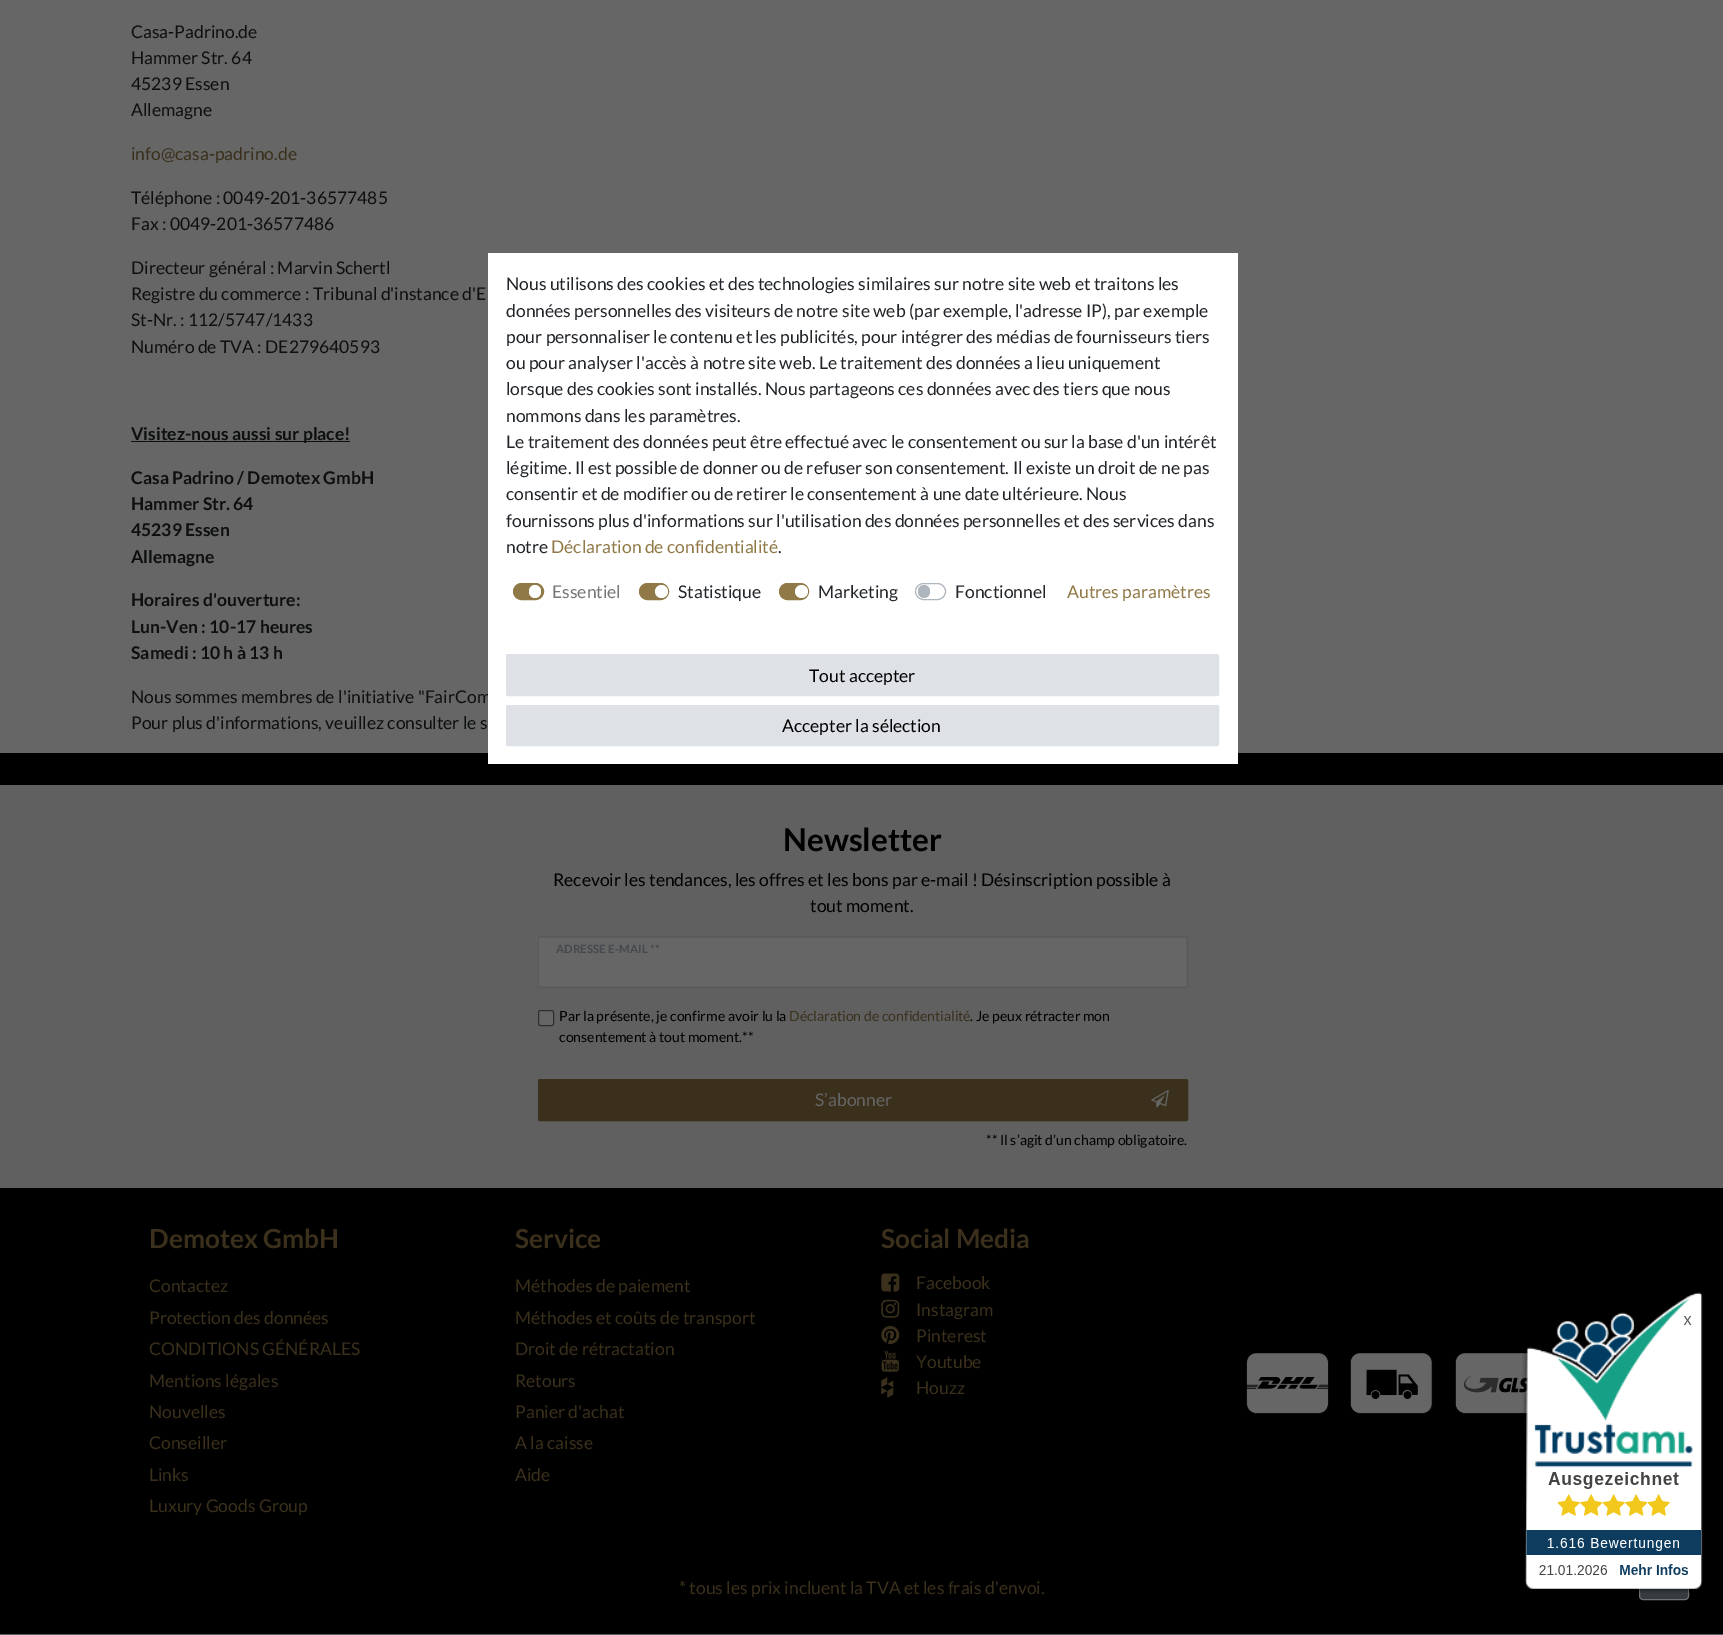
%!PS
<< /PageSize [1723 1635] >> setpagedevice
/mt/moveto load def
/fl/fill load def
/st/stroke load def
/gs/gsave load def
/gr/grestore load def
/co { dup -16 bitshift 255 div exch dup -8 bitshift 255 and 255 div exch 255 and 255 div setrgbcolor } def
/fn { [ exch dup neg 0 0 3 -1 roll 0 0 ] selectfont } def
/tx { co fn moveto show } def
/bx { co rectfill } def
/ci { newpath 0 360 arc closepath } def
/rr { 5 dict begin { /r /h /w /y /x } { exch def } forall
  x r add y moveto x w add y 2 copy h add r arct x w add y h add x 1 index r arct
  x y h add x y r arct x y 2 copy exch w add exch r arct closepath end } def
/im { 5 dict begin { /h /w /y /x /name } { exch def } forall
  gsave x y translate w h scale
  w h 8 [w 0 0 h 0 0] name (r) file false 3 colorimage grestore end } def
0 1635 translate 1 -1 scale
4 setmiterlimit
0 0 1723 1635 16#666666 bx
131 441 219 1 16#0D0F10 bx
0 753 1723 881 16#000000 bx
0 1634 1723 1 16#595A5C bx
0 785 1723 403 16#606060 bx
16#595A5C co
538.5 936.5 649 51 1.5 rr st
16#666666 co
539 938 647 48 .5 rr fl
538.5 1010.5 15 15 2 rr gs fl gr
16#2F2F2F co
st
16#3A301C co
538.5 1079.5 649 41 1.5 rr gs fl gr
st
(media/1.raw) 1151 1090 18 18 im
(media/2.raw) 881 1273 19 19 im
(media/3.raw) 881 1299 19 19 im
(media/4.raw) 881 1326 19 18 im
(media/5.raw) 881 1350 18 22 im
(media/6.raw) 881 1377 13 21 im
(media/7.raw) 1246 1353 83 61 im
(media/8.raw) 1350 1353 83 61 im
(media/9.raw) 1455 1353 73 61 im
16#363B3F co
1639.5 1548.5 49 51 3.5 rr gs fl gr
16#6F7173 co
st
(media/10.raw) 1522 1292 181 301 im
(Casa-Padrino.de) 131 38 /Lato-Regular 17.5 16#0D0F10 tx
(Hammer Str. 64) 131 64 /Lato-Regular 17.5 16#0D0F10 tx
(45239 Essen) 131 90 /Lato-Regular 17.5 16#0D0F10 tx
(Allemagne) 131 116 /Lato-Regular 17.5 16#0D0F10 tx
(info@casa-padrino.de) 131 160 /Lato-Regular 17.5 16#3A301C tx
(Téléphone : 0049-201-36577485) 131 204 /Lato-Regular 17.5 16#0D0F10 tx
(Fax : 0049-201-36577486) 131 230 /Lato-Regular 17.5 16#0D0F10 tx
(Directeur général : Marvin Schertl) 131 274 /Lato-Regular 17.5 16#0D0F10 tx
(Registre du commerce : Tribunal d'instance d'E) 131 300 /Lato-Regular 17.5 16#0D0F10 tx
(St-Nr. : 112/5747/1433) 131 326 /Lato-Regular 17.5 16#0D0F10 tx
(Numéro de TVA : DE279640593) 131 353 /Lato-Regular 17.5 16#0D0F10 tx
(Visitez-nous aussi sur place!) 131 440 /Lato-Bold 17.5 16#0D0F10 tx
(Casa Padrino / Demotex GmbH) 131 484 /Lato-Bold 17.5 16#0D0F10 tx
(Hammer Str. 64) 131 510 /Lato-Bold 17.5 16#0D0F10 tx
(45239 Essen) 131 536 /Lato-Bold 17.5 16#0D0F10 tx
(Allemagne) 131 563 /Lato-Bold 17.5 16#0D0F10 tx
(Horaires d'ouverture:) 131 606 /Lato-Bold 17.5 16#0D0F10 tx
(Lun-Ven : 10-17 heures) 131 633 /Lato-Bold 17.5 16#0D0F10 tx
(Samedi : 10 h à 13 h) 131 659 /Lato-Bold 17.5 16#0D0F10 tx
(Nous sommes membres de l'initiative "FairCom) 131 703 /Lato-Regular 17.5 16#0D0F10 tx
(Pour plus d'informations, veuillez consulter le s) 131 729 /Lato-Regular 17.5 16#0D0F10 tx
488 253 750 511 16#FFFFFF bx
(Nous utilisons des cookies et des technologies similaires sur notre site web et traitons les) 506 290 /Lato-Regular 17.5 16#212529 tx
(données personnelles des visiteurs de notre site web \(par exemple, l'adresse IP\), par exemple) 506 317 /Lato-Regular 17.5 16#212529 tx
(pour personnaliser le contenu et les publicités, pour intégrer des médias de fournisseurs tiers) 506 343 /Lato-Regular 17.5 16#212529 tx
(ou pour analyser l'accès à notre site web. Le traitement des données a lieu uniquement) 506 369 /Lato-Regular 17.5 16#212529 tx
(lorsque des cookies sont installés. Nous partageons ces données avec des tiers que nous) 506 395 /Lato-Regular 17.5 16#212529 tx
(nommons dans les paramètres.) 506 422 /Lato-Regular 17.5 16#212529 tx
(Le traitement des données peut être effectué avec le consentement ou sur la base d'un intérêt) 506 448 /Lato-Regular 17.5 16#212529 tx
(légitime. Il est possible de donner ou de refuser son consentement. Il existe un droit de ne pas) 506 474 /Lato-Regular 17.5 16#212529 tx
(consentir et de modifier ou de retirer le consentement à une date ultérieure. Nous) 506 500 /Lato-Regular 17.5 16#212529 tx
(fournissons plus d'informations sur l'utilisation des données personnelles et des services dans) 506 527 /Lato-Regular 17.5 16#212529 tx
(notre) 506 553 /Lato-Regular 17.5 16#212529 tx
(Déclaration de confidentialité) 551 553 /Lato-Regular 17.5 16#907946 tx
(.) 778 553 /Lato-Regular 17.5 16#212529 tx
16#907946 co
513.5 583.5 30 16 8 rr gs fl gr
st
16#FFFFFF co
529 585 12 13 6 rr fl
(Essentiel) 552 598 /Lato-Regular 17.5 16#767676 tx
16#907946 co
639.5 583.5 29 16 8 rr gs fl gr
st
16#FFFFFF co
661.5 591.5 6.5 ci fl
(Statistique) 678 598 /Lato-Regular 17.5 16#212529 tx
16#907946 co
779.5 583.5 29 16 8 rr gs fl gr
st
16#FFFFFF co
801.5 591.5 6.5 ci fl
(Marketing) 818 598 /Lato-Regular 17.5 16#212529 tx
16#ADB5BD co
915.5 583.5 30 16 8 rr st
918 585 12 13 6 rr fl
(Fonctionnel) 955 598 /Lato-Regular 17.5 16#212529 tx
(Autres paramètres) 1067 598 /Lato-Regular 17.5 16#907946 tx
16#DEE2E6 co
506.5 654.5 712 41 1.5 rr gs fl gr
st
(Tout accepter) 809 682 /Lato-Regular 17.5 16#000000 tx
16#DEE2E6 co
506.5 705.5 712 40 1.5 rr gs fl gr
st
(Accepter la sélection) 782 732 /Lato-Regular 17.5 16#000000 tx
(Newsletter) 783 851 /Lato-Bold 31.5 16#000000 tx
(Recevoir les tendances, les offres et les bons par e-mail ! Désinscription possible à) 553 886 /Lato-Regular 17.5 16#000000 tx
(tout moment.) 810 912 /Lato-Regular 17.5 16#000000 tx
/Lato-Bold 11.4 fn
16#45484C co
556 953 mt .1 0 (ADRESSE E-MAIL **) ashow
(Par la présente, je confirme avoir lu la) 559 1021 /Lato-Regular 14 16#000000 tx
(Déclaration de confidentialité) 789 1021 /Lato-Regular 14 16#3A301C tx
(. Je peux rétracter mon) 970 1021 /Lato-Regular 14 16#000000 tx
(consentement à tout moment.**) 559 1042 /Lato-Regular 14 16#000000 tx
(S’abonner) 815 1106 /Lato-Regular 17.5 16#666666 tx
(** Il s’agit d’un champ obligatoire.) 986 1145 /Lato-Regular 14 16#000000 tx
(Demotex GmbH) 149 1248 /Lato-Bold 26.25 16#3A301C tx
(Contactez) 149 1292 /Lato-Regular 17.5 16#3A301C tx
(Protection des données) 149 1324 /Lato-Regular 17.5 16#3A301C tx
(CONDITIONS GÉNÉRALES) 149 1355 /Lato-Regular 17.5 16#3A301C tx
(Mentions légales) 149 1387 /Lato-Regular 17.5 16#3A301C tx
(Nouvelles) 149 1418 /Lato-Regular 17.5 16#3A301C tx
(Conseiller) 149 1449 /Lato-Regular 17.5 16#3A301C tx
(Links) 149 1481 /Lato-Regular 17.5 16#3A301C tx
(Luxury Goods Group) 149 1512 /Lato-Regular 17.5 16#3A301C tx
(Service) 515 1248 /Lato-Bold 26.25 16#3A301C tx
(Méthodes de paiement) 515 1292 /Lato-Regular 17.5 16#3A301C tx
(Méthodes et coûts de transport) 515 1324 /Lato-Regular 17.5 16#3A301C tx
(Droit de rétractation) 515 1355 /Lato-Regular 17.5 16#3A301C tx
(Retours) 515 1387 /Lato-Regular 17.5 16#3A301C tx
(Panier d'achat) 515 1418 /Lato-Regular 17.5 16#3A301C tx
(A la caisse) 515 1449 /Lato-Regular 17.5 16#3A301C tx
(Aide) 515 1481 /Lato-Regular 17.5 16#3A301C tx
(Social Media) 881 1248 /Lato-Bold 26.25 16#3A301C tx
(Facebook) 916 1289 /Lato-Regular 17.5 16#3A301C tx
(Instagram) 916 1316 /Lato-Regular 17.5 16#3A301C tx
(Pinterest) 916 1342 /Lato-Regular 17.5 16#3A301C tx
(Youtube) 916 1368 /Lato-Regular 17.5 16#3A301C tx
(Houzz) 916 1394 /Lato-Regular 17.5 16#3A301C tx
(* tous les prix incluent la TVA et les frais d'envoi.) 679 1594 /Lato-Regular 17.5 16#3A301C tx
showpage
